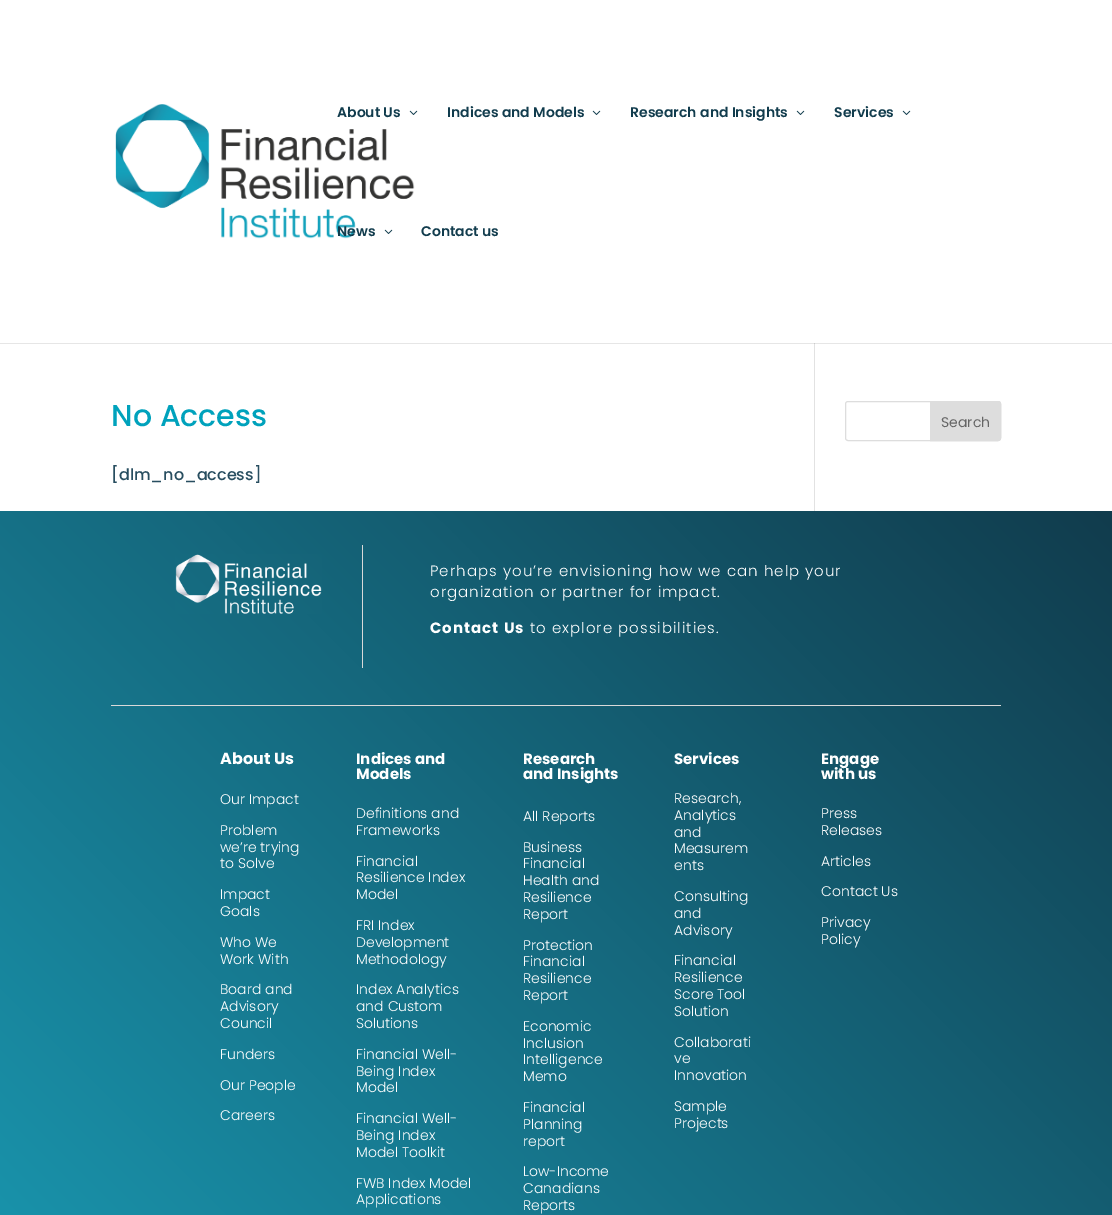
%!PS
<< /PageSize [1112 1215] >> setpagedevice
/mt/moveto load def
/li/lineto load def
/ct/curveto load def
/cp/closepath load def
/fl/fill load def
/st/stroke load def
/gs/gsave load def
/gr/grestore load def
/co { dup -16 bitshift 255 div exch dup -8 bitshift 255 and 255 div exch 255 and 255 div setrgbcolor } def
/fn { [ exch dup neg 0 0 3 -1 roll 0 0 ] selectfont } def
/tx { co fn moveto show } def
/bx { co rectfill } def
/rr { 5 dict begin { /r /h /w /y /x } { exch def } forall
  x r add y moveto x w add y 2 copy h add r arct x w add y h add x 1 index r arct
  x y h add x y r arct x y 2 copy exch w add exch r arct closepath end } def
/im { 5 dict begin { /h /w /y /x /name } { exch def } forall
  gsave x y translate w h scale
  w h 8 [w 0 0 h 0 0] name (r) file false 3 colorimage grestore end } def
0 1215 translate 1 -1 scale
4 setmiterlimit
0 0 1112 1215 16#FFFFFF bx
0 343 1112 1 16#E6E6E6 bx
(media/1.raw) 115 104 300 135 im
(media/2.raw) 409 110 9 5 im
(media/2.raw) 592 110 9 5 im
(media/2.raw) 796 110 9 5 im
(media/2.raw) 902 110 9 5 im
(media/2.raw) 384 229 9 5 im
814 343 1 168 16#E2E2E2 bx
814 343 1 1 16#CBCBCB bx
16#DDDDDD co
845.5 401.5 155 39 2.5 rr st
930.5 401.5 mt 998 401.5 li 999.5 401.5 1000.5 402.5 1000.5 404 ct 1000.5 438 li 1000.5 439.5 999.5 440.5 998 440.5 ct 930.5 440.5 li cp gs fl gr
st
gs 0 511 mt 1112 511 li 1112 1215 li 0 1215 li cp clip newpath
<< /ShadingType 2 /ColorSpace /DeviceRGB /Coords [17 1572 1095 494] /Extend [true true] /Function << /FunctionType 2 /Domain [0 1] /C0 [.102 .635 .737] /C1 [.067 .235 .302] /N 1 >> >> shfill gr
(media/3.raw) 175 554 147 60 im
362 545 1 123 16#D9D9D9 bx
111 705 890 1 16#D9D9D9 bx
(About Us) 337 117 /Poppins-SemiBold 14 16#113C4D tx
(Indices and Models) 447 117 /Poppins-SemiBold 14 16#113C4D tx
(Research and Insights) 630 117 /Poppins-SemiBold 14 16#113C4D tx
(Services) 834 117 /Poppins-SemiBold 14 16#113C4D tx
(News) 337 236 /Poppins-SemiBold 14 16#113C4D tx
(Contact us) 421 236 /Poppins-SemiBold 14 16#113C4D tx
(No Access) 111 426 /Poppins-Medium 30 16#00A2BC tx
([dlm_no_access]) 111 480 /Poppins-Medium 16 16#284E60 tx
(Search) 941 427 /Poppins-Regular 14 16#666666 tx
/Poppins-Light 15 fn
16#FFFFFF co
430 576 mt 1 0 (Perhaps you’re envisioning how we can help your) ashow
430 597 mt 1 0 (organization or partner for impact.) ashow
/Poppins-Bold 15 fn
430 633 mt 1 0 (Contact Us) ashow
/Poppins-Light 15 fn
530 633 mt 1 0 (to explore possibilities.) ashow
(About Us) 220 764 /Poppins-Bold 16 16#FFFFFF tx
(Our Impact) 220 804 /Poppins-Light 14 16#FFFFFF tx
(Problem) 220 835 /Poppins-Light 14 16#FFFFFF tx
(we’re trying) 220 852 /Poppins-Light 14 16#FFFFFF tx
(to Solve) 220 868 /Poppins-Light 14 16#FFFFFF tx
(Impact) 220 899 /Poppins-Light 14 16#FFFFFF tx
(Goals) 220 916 /Poppins-Light 14 16#FFFFFF tx
(Who We) 220 947 /Poppins-Light 14 16#FFFFFF tx
(Work With) 220 964 /Poppins-Light 14 16#FFFFFF tx
(Board and) 220 994 /Poppins-Light 14 16#FFFFFF tx
(Advisory) 220 1011 /Poppins-Light 14 16#FFFFFF tx
(Council) 220 1028 /Poppins-Light 14 16#FFFFFF tx
(Funders) 220 1059 /Poppins-Light 14 16#FFFFFF tx
(Our People) 220 1090 /Poppins-Light 14 16#FFFFFF tx
(Careers) 220 1120 /Poppins-Light 14 16#FFFFFF tx
(Indices and) 356 764 /Poppins-Bold 15 16#FFFFFF tx
(Models) 356 779 /Poppins-Bold 15 16#FFFFFF tx
(Definitions and) 356 818 /Poppins-Light 14 16#FFFFFF tx
(Frameworks) 356 835 /Poppins-Light 14 16#FFFFFF tx
(Financial) 356 866 /Poppins-Light 14 16#FFFFFF tx
(Resilience Index) 356 882 /Poppins-Light 14 16#FFFFFF tx
(Model) 356 899 /Poppins-Light 14 16#FFFFFF tx
(FRI Index) 356 930 /Poppins-Light 14 16#FFFFFF tx
(Development) 356 947 /Poppins-Light 14 16#FFFFFF tx
(Methodology) 356 964 /Poppins-Light 14 16#FFFFFF tx
(Index Analytics) 356 994 /Poppins-Light 14 16#FFFFFF tx
(and Custom) 356 1011 /Poppins-Light 14 16#FFFFFF tx
(Solutions) 356 1028 /Poppins-Light 14 16#FFFFFF tx
(Financial Well-) 356 1059 /Poppins-Light 14 16#FFFFFF tx
(Being Index) 356 1076 /Poppins-Light 14 16#FFFFFF tx
(Model) 356 1092 /Poppins-Light 14 16#FFFFFF tx
(Financial Well-) 356 1123 /Poppins-Light 14 16#FFFFFF tx
(Being Index) 356 1140 /Poppins-Light 14 16#FFFFFF tx
(Model Toolkit) 356 1157 /Poppins-Light 14 16#FFFFFF tx
(FWB Index Model) 356 1188 /Poppins-Light 14 16#FFFFFF tx
(Applications) 356 1204 /Poppins-Light 14 16#FFFFFF tx
(Research) 523 764 /Poppins-Bold 15 16#FFFFFF tx
(and Insights) 523 779 /Poppins-Bold 15 16#FFFFFF tx
(All Reports) 523 821 /Poppins-Light 14 16#FFFFFF tx
(Business) 523 852 /Poppins-Light 14 16#FFFFFF tx
(Financial) 523 868 /Poppins-Light 14 16#FFFFFF tx
(Health and) 523 885 /Poppins-Light 14 16#FFFFFF tx
(Resilience) 523 902 /Poppins-Light 14 16#FFFFFF tx
(Report) 523 919 /Poppins-Light 14 16#FFFFFF tx
(Protection) 523 950 /Poppins-Light 14 16#FFFFFF tx
(Financial) 523 966 /Poppins-Light 14 16#FFFFFF tx
(Resilience) 523 983 /Poppins-Light 14 16#FFFFFF tx
(Report) 523 1000 /Poppins-Light 14 16#FFFFFF tx
(Economic) 523 1031 /Poppins-Light 14 16#FFFFFF tx
(Inclusion) 523 1048 /Poppins-Light 14 16#FFFFFF tx
(Intelligence) 523 1064 /Poppins-Light 14 16#FFFFFF tx
(Memo) 523 1081 /Poppins-Light 14 16#FFFFFF tx
(Financial) 523 1112 /Poppins-Light 14 16#FFFFFF tx
(Planning) 523 1129 /Poppins-Light 14 16#FFFFFF tx
(report) 523 1146 /Poppins-Light 14 16#FFFFFF tx
(Low-Income) 523 1176 /Poppins-Light 14 16#FFFFFF tx
(Canadians) 523 1193 /Poppins-Light 14 16#FFFFFF tx
(Reports) 523 1210 /Poppins-Light 14 16#FFFFFF tx
(Services) 674 764 /Poppins-Bold 15 16#FFFFFF tx
(Research,) 674 803 /Poppins-Light 14 16#FFFFFF tx
(Analytics) 674 820 /Poppins-Light 14 16#FFFFFF tx
(and) 674 837 /Poppins-Light 14 16#FFFFFF tx
(Measurem) 674 853 /Poppins-Light 14 16#FFFFFF tx
(ents) 674 870 /Poppins-Light 14 16#FFFFFF tx
(Consulting) 674 901 /Poppins-Light 14 16#FFFFFF tx
(and) 674 918 /Poppins-Light 14 16#FFFFFF tx
(Advisory) 674 935 /Poppins-Light 14 16#FFFFFF tx
(Financial) 674 965 /Poppins-Light 14 16#FFFFFF tx
(Resilience) 674 982 /Poppins-Light 14 16#FFFFFF tx
(Score Tool) 674 999 /Poppins-Light 14 16#FFFFFF tx
(Solution) 674 1016 /Poppins-Light 14 16#FFFFFF tx
(Collaborati) 674 1047 /Poppins-Light 14 16#FFFFFF tx
(ve) 674 1063 /Poppins-Light 14 16#FFFFFF tx
(Innovation) 674 1080 /Poppins-Light 14 16#FFFFFF tx
(Sample) 674 1111 /Poppins-Light 14 16#FFFFFF tx
(Projects) 674 1128 /Poppins-Light 14 16#FFFFFF tx
(Engage) 821 764 /Poppins-Bold 15 16#FFFFFF tx
(with us) 821 779 /Poppins-Bold 15 16#FFFFFF tx
(Press) 821 818 /Poppins-Light 14 16#FFFFFF tx
(Releases) 821 835 /Poppins-Light 14 16#FFFFFF tx
(Articles) 821 866 /Poppins-Light 14 16#FFFFFF tx
(Contact Us) 821 896 /Poppins-Light 14 16#FFFFFF tx
(Privacy) 821 927 /Poppins-Light 14 16#FFFFFF tx
(Policy) 821 944 /Poppins-Light 14 16#FFFFFF tx
showpage
